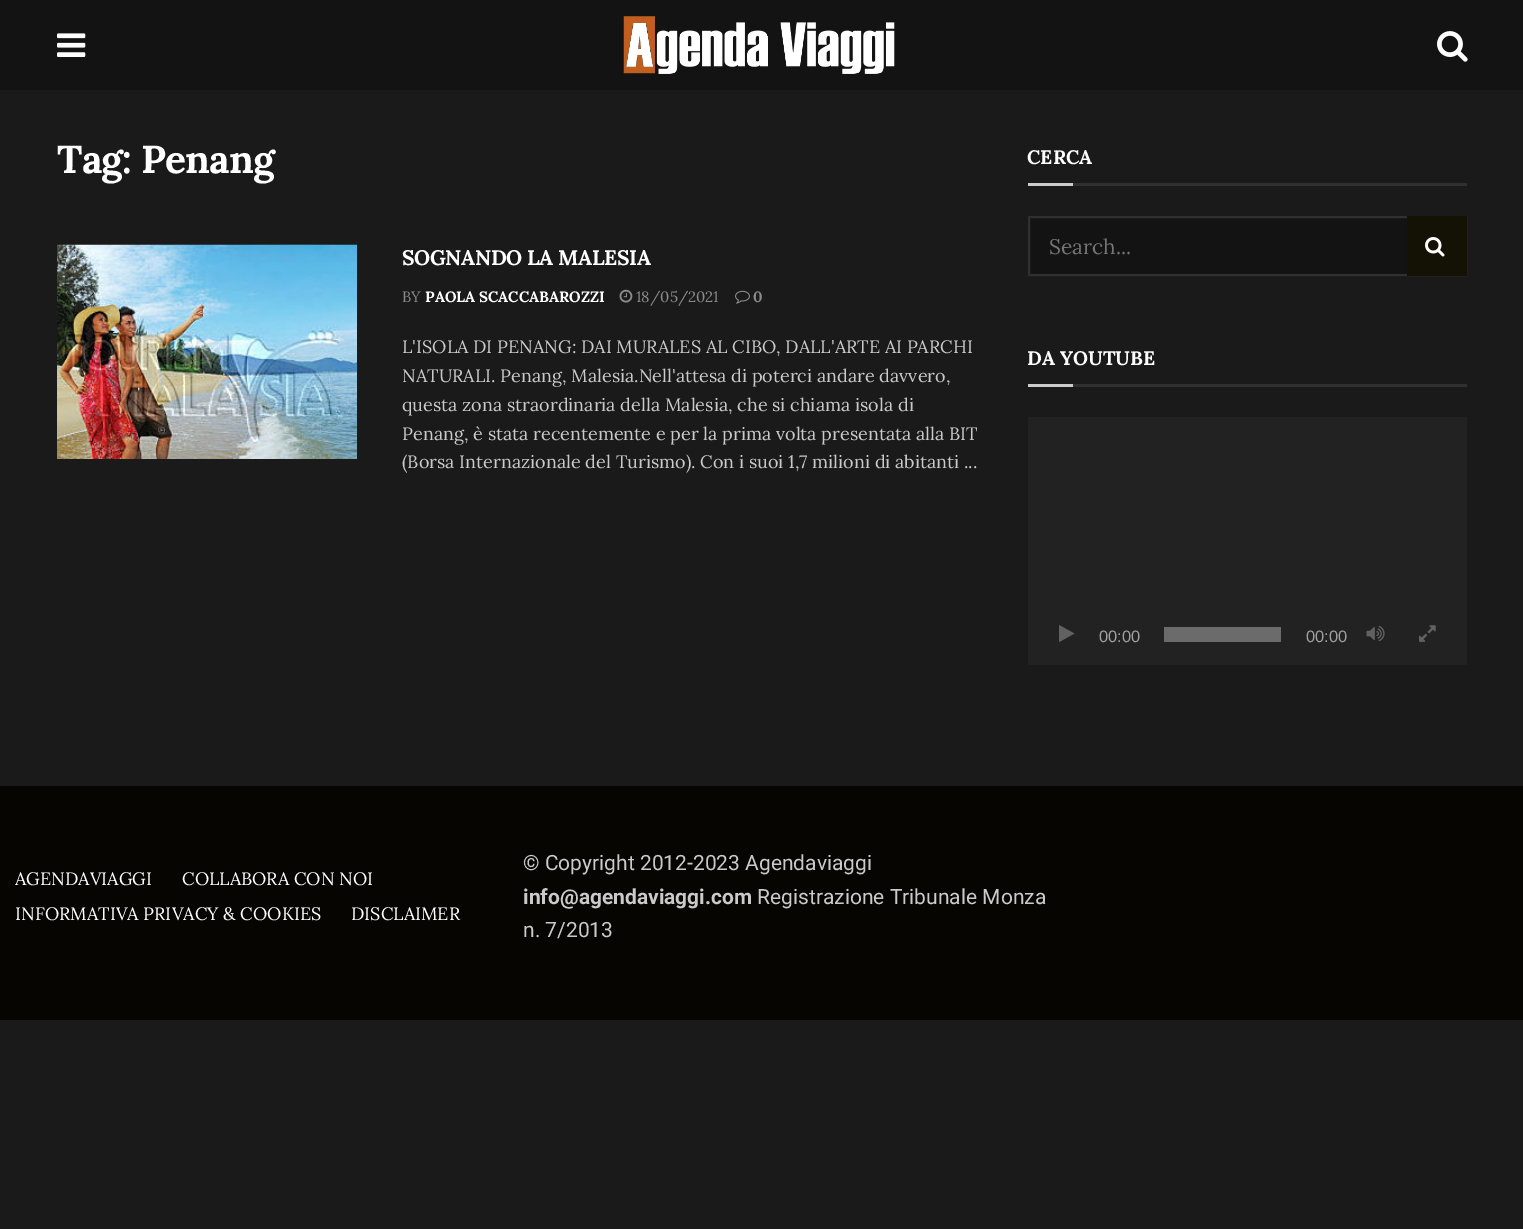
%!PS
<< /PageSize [1523 1229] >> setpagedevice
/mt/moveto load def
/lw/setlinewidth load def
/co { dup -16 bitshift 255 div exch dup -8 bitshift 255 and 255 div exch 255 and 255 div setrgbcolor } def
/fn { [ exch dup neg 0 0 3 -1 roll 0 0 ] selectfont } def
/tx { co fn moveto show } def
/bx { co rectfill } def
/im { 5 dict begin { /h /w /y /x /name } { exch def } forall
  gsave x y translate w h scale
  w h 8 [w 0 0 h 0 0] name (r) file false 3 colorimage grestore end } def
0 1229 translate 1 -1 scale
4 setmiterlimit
0 0 1523 1229 16#1A1A1A bx
0 0 1523 90 16#131313 bx
(media/1.raw) 57 33 29 24 im
(media/2.raw) 623 16 272 58 im
(media/3.raw) 1437 31 31 31 im
(media/5.raw) 253 244 82 1 im
(media/4.raw) 57 244 300 215 im
(media/6.raw) 619 289 14 14 im
(media/7.raw) 735 290 15 14 im
1073 183 394 3 16#303030 bx
1028 183 45 3 16#CCCCCC bx
1030 218 377 56 16#131313 bx
16#303030 co
2 lw
1029 217 437 58 rectstroke
1407 216 60 60 16#141204 bx
(media/8.raw) 1425 237 20 20 im
1073 384 394 3 16#303030 bx
1028 384 45 3 16#CCCCCC bx
1028 417 439 248 16#222222 bx
(media/9.raw) 1059 625 16 17 im
1164 627 117 15 16#6B6B6B bx
(media/10.raw) 1366 625 19 17 im
(media/11.raw) 1419 625 17 17 im
0 786 1523 234 16#060502 bx
/Lora-Bold 39 fn
16#FFFFFF co
57 173 mt -.75 0 (Tag: Penang) ashow
/Lora-Bold 21 fn
402 265 mt -.4 0 (SOGNANDO LA MALESIA) ashow
(BY) 402 302 /Lora-Regular 15 16#8B8B8B tx
(PAOLA SCACCABAROZZI) 425 302 /Lora-Bold 15 16#FFFFFF tx
(18/05/2021) 636 302 /Lora-Regular 15 16#8B8B8B tx
(0) 753 302 /Lora-Bold 15 16#8B8B8B tx
(L'ISOLA DI PENANG: DAI MURALES AL CIBO, DALL'ARTE AI PARCHI) 402 353 /Lora-Regular 18 16#CACACA tx
(NATURALI. Penang, Malesia.Nell'attesa di poterci andare davvero,) 402 382 /Lora-Regular 18 16#CACACA tx
(questa zona straordinaria della Malesia, che si chiama isola di) 402 411 /Lora-Regular 18 16#CACACA tx
(Penang, è stata recentemente e per la prima volta presentata alla BIT) 402 440 /Lora-Regular 18 16#CACACA tx
(\(Borsa Internazionale del Turismo\). Con i suoi 1,7 milioni di abitanti ...) 402 468 /Lora-Regular 18 16#CACACA tx
(CERCA) 1027 164 /Lora-Bold 19.5 16#FFFFFF tx
(Search...) 1049 254 /Lora-Regular 21 16#757575 tx
(DA YOUTUBE) 1027 365 /Lora-Bold 19.5 16#FFFFFF tx
(00:00) 1099 642 /LiberationSans-Regular 16.5 16#A0A0A0 tx
(00:00) 1306 642 /LiberationSans-Regular 16.5 16#A0A0A0 tx
(AGENDAVIAGGI) 15 885 /Lora-Regular 18 16#FFFFFF tx
(COLLABORA CON NOI) 182 885 /Lora-Regular 18 16#FFFFFF tx
(INFORMATIVA PRIVACY & COOKIES) 15 920 /Lora-Regular 18 16#FFFFFF tx
(DISCLAIMER) 351 920 /Lora-Regular 18 16#FFFFFF tx
(© Copyright 2012-2023 Agendaviaggi) 523 870 /Roboto-Regular 21 16#CACACA tx
(info@agendaviaggi.com) 523 904 /Roboto-Bold 21 16#CACACA tx
(Registrazione Tribunale Monza) 757 904 /Roboto-Regular 21 16#CACACA tx
(n. 7/2013) 523 937 /Roboto-Regular 21 16#CACACA tx
showpage
